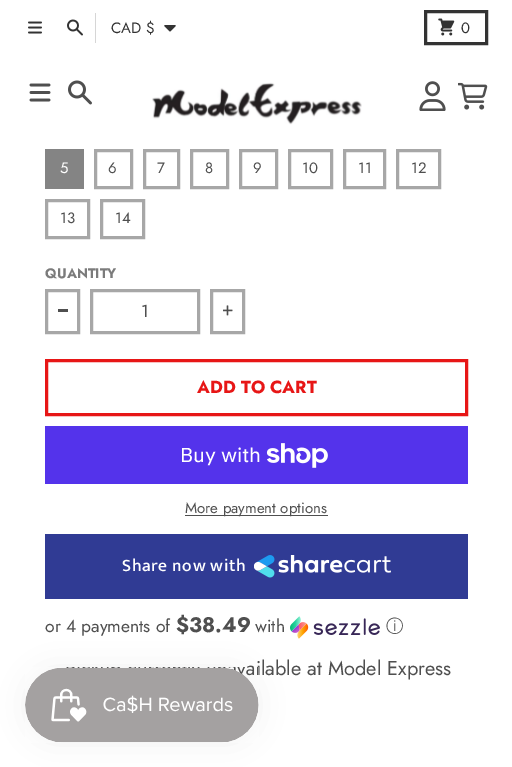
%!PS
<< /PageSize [512 767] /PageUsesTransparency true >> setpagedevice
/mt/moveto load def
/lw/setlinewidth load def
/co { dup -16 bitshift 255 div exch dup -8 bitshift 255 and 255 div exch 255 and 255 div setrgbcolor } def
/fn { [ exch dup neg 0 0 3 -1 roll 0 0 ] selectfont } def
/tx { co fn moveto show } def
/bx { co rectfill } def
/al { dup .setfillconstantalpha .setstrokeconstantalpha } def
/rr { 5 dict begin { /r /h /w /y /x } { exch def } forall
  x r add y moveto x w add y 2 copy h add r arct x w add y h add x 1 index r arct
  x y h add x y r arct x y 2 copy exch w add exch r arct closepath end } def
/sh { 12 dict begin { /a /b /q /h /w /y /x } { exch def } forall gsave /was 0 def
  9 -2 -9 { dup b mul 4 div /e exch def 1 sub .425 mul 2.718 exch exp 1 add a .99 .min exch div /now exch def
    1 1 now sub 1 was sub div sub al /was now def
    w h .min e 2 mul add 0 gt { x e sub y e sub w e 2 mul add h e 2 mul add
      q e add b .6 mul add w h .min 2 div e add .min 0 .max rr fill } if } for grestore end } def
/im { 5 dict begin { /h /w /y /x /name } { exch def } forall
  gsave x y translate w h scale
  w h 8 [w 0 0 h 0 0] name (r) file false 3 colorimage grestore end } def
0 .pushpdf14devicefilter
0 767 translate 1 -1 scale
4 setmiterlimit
0 0 512 767 16#FFFFFF bx
(media/1.raw) 28 21 14 13 im
(media/2.raw) 67 19 16 17 im
95 13 1 30 16#D6D6D6 bx
(media/3.raw) 164 25 12 7 im
16#333333 co
3 lw
425.5 11.5 61 32 rectstroke
(media/4.raw) 438 18 17 18 im
(media/5.raw) 29 83 22 19 im
(media/6.raw) 68 80 24 25 im
(media/7.raw) 152 82 210 43 im
(media/8.raw) 419 81 27 30 im
(media/9.raw) 458 82 30 28 im
45 149 39 40 16#848484 bx
16#A7A7A7 co
95.5 150.5 36 37 rectstroke
144.5 150.5 34 37 rectstroke
191.5 150.5 36 37 rectstroke
240.5 150.5 36 37 rectstroke
289.5 150.5 42 37 rectstroke
344.5 150.5 40 37 rectstroke
397.5 150.5 42 37 rectstroke
46.5 200.5 42 37 rectstroke
101.5 200.5 42 37 rectstroke
46.5 290.5 32 42 rectstroke
58 309 10 3 16#4F4F4F bx
16#A7A7A7 co
91.5 290.5 107 42 rectstroke
211.5 290.5 32 42 rectstroke
(media/10.raw) 223 305 10 11 im
16#E71616 co
46.5 360.5 420 54 rectstroke
45 426 423 58 16#5433EB bx
(media/11.raw) 266 443 62 25 im
185 515 143 1 16#4F4F4F bx
45 534 423 65 16#303B94 bx
(media/12.raw) 254 555 137 23 im
(media/13.raw) 290 616 90 23 im
16#000000 co
25 668 234 75 37.5 15.5 .05 sh
(CAD $) 111 33 /Jost-Regular 15 16#333333 tx
(0) 461 33 /Jost-Regular 15 16#333333 tx
(5) 60 173 /Jost-Regular 15 16#FFFFFF tx
(6) 108 173 /Jost-Regular 15 16#4F4F4F tx
(7) 157 173 /Jost-Regular 15 16#4F4F4F tx
(8) 205 173 /Jost-Regular 15 16#4F4F4F tx
(9) 253 173 /Jost-Regular 15 16#4F4F4F tx
(10) 302 173 /Jost-Regular 15 16#4F4F4F tx
(11) 358 173 /Jost-Regular 15 16#4F4F4F tx
(12) 411 173 /Jost-Regular 15 16#4F4F4F tx
(13) 60 223 /Jost-Regular 15 16#4F4F4F tx
(14) 115 223 /Jost-Regular 15 16#4F4F4F tx
(QUANTITY) 45 278 /Jost-Bold 13.75 16#7B7B7B tx
(1) 141 317 /Jost-Regular 17.5 16#4F4F4F tx
(ADD TO CART) 197 393 /Jost-Bold 17.5 16#E71616 tx
(Buy with) 180 462 /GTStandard-Regular 20 16#FFFFFF tx
(More payment options) 185 513 /Jost-Regular 15 16#4F4F4F tx
/Mukta-Medium 17.5 fn
16#FFFFFF co
122 571 mt .6 0 (Share now with) ashow
(or 4 payments of) 45 632 /Jost-Regular 17.5 16#4F4F4F tx
($38.49) 176 632 /Jost-Bold 21 16#4F4F4F tx
(with) 255 632 /Jost-Regular 17.5 16#4F4F4F tx
(ⓘ) 386 632 /WenQuanYiZenHei-Medium 17.5 16#4F4F4F tx
(ailable at Model Express) 246 675 /Jost-Regular 20 16#4F4F4F tx
(media/14.raw) 25 667 234 76 im
.poppdf14devicefilter showpage
